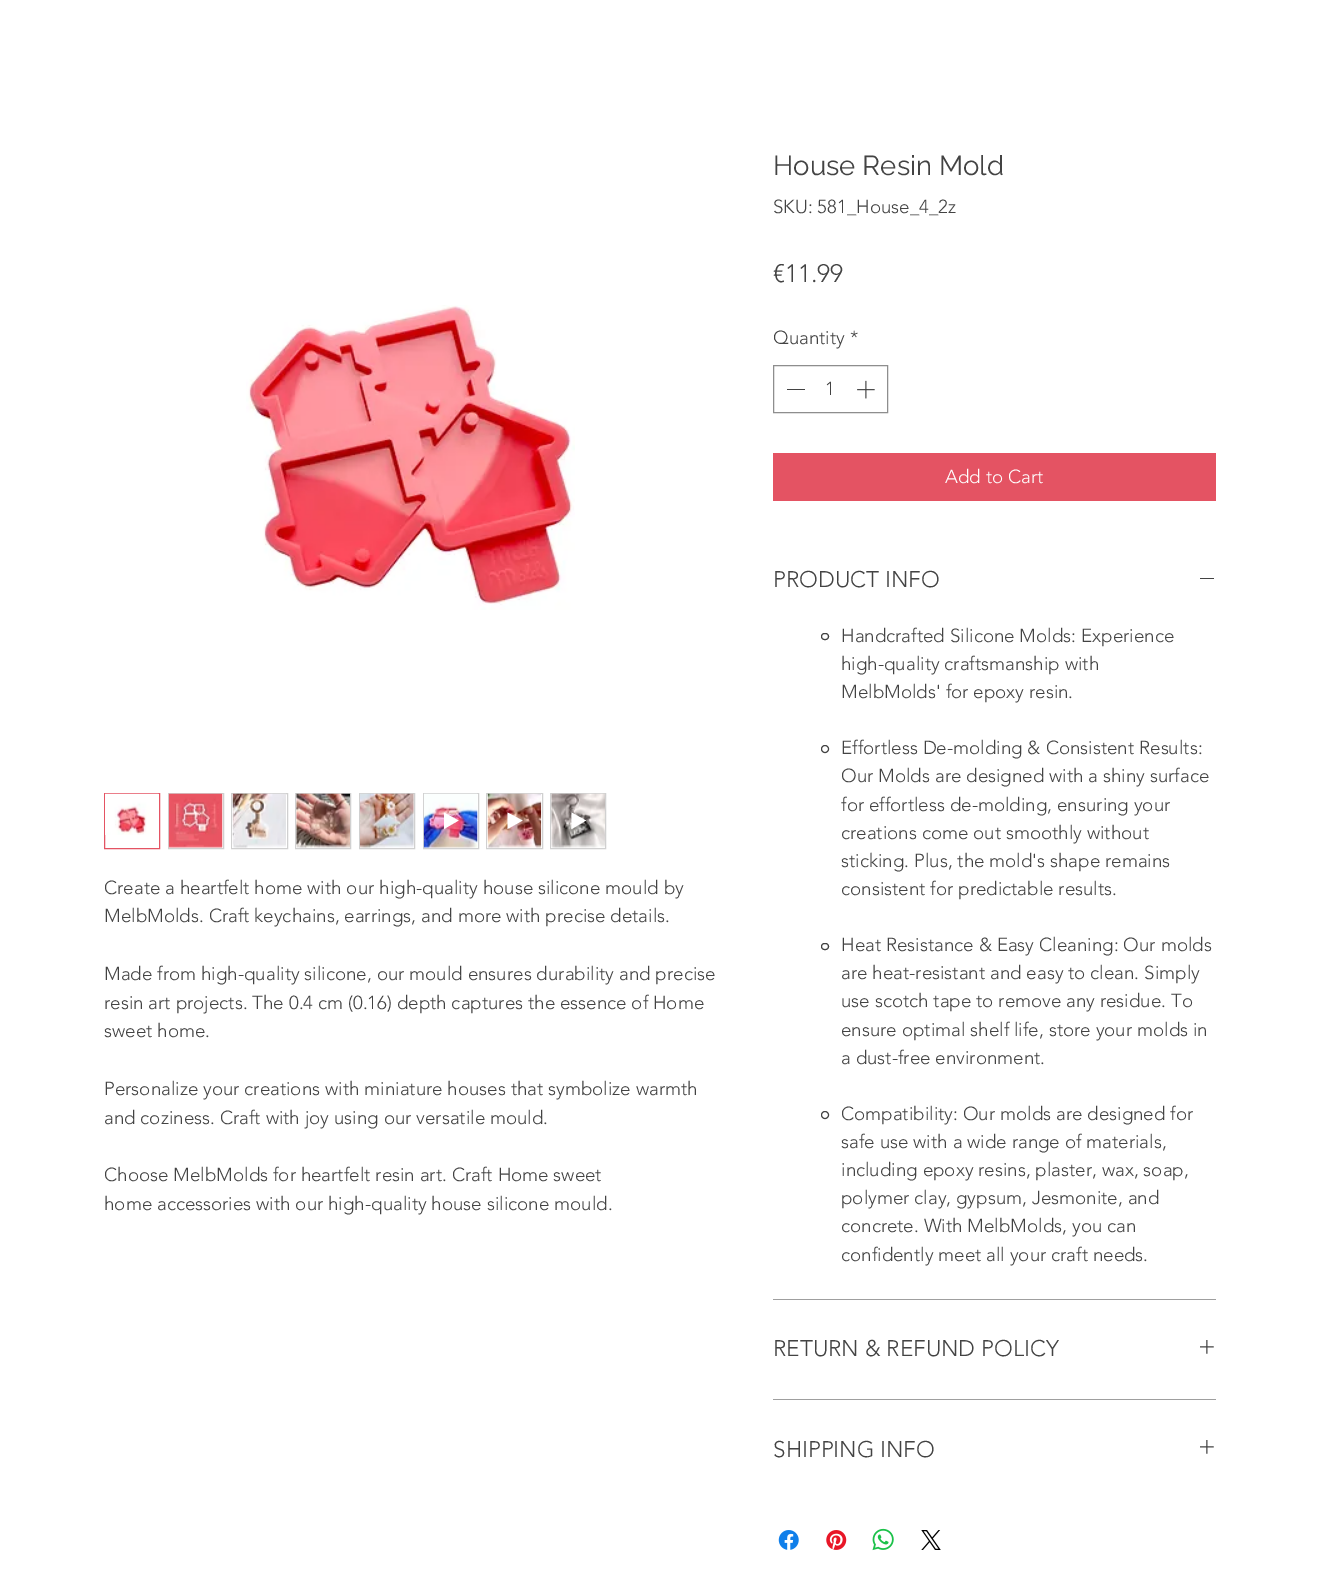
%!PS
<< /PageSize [1319 1580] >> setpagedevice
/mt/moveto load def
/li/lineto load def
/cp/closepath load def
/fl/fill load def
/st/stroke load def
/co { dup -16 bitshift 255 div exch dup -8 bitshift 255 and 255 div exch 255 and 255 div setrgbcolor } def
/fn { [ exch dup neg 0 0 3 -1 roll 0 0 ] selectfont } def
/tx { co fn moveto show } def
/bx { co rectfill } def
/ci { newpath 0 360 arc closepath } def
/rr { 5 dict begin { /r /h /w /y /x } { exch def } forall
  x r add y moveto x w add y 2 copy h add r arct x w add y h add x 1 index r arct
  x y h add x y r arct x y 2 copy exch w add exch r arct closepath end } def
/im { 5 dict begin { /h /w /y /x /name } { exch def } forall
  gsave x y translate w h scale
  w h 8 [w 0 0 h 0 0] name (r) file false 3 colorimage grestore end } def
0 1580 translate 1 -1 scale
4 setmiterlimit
0 0 1319 1580 16#FFFFFF bx
(media/1.raw) 246 305 329 305 im
16#E45363 co
104.5 793.5 55 55 rectstroke
(media/2.raw) 105 793 54 42 im
16#D0D0D0 co
168.5 793.5 55 55 rectstroke
(media/3.raw) 168 793 55 55 im
231.5 793.5 56 55 rectstroke
(media/4.raw) 232 793 54 55 im
295.5 793.5 55 55 rectstroke
(media/5.raw) 296 793 54 55 im
359.5 793.5 55 55 rectstroke
(media/6.raw) 360 793 54 55 im
423.5 793.5 55 55 rectstroke
(media/7.raw) 423 793 55 55 im
16#FFFFFF co
444 812.5 mt 444 829 li 458.5 820.5 li cp fl
16#D0D0D0 co
486.5 793.5 56 55 rectstroke
(media/8.raw) 487 793 55 55 im
16#FFFFFF co
507.5 812.5 mt 507.5 829 li 522.5 820.5 li cp fl
16#D0D0D0 co
550.5 793.5 55 55 rectstroke
(media/9.raw) 551 793 54 55 im
16#FFFFFF co
571.5 812.5 mt 571.5 829 li 586 820.5 li cp fl
16#8E8E8E co
773.5 365.5 114 47 rectstroke
787 389 18 1 16#434343 bx
(media/10.raw) 857 380 18 19 im
773 453 443 48 16#E45363 bx
773 1299 443 1 16#9F9F9F bx
1200 578 14 1 16#434343 bx
821.5 633.5 7 6 3 rr st
825 749 3.5 ci st
821.5 943.5 7 6 3 rr st
825 1115 3.5 ci st
773 1399 443 1 16#9F9F9F bx
(media/11.raw) 1200 1340 14 14 im
(media/11.raw) 1200 1440 14 14 im
(media/12.raw) 778 1530 21 20 im
(media/13.raw) 826 1530 21 20 im
(media/14.raw) 872 1528 22 23 im
(media/15.raw) 921 1530 20 20 im
(Create a heartfelt home with our high-quality house silicone mould by) 104 894 /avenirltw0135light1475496-Light 18.75 16#434343 tx
(MelbMolds. Craft keychains, earrings, and more with precise details.) 104 922 /avenirltw0135light1475496-Light 18.75 16#434343 tx
(Made from high-quality silicone, our mould ensures durability and precise) 104 980 /avenirltw0135light1475496-Light 18.75 16#434343 tx
(resin art projects. The 0.4 cm \(0.16\) depth captures the essence of Home) 104 1009 /avenirltw0135light1475496-Light 18.75 16#434343 tx
(sweet home.) 104 1037 /avenirltw0135light1475496-Light 18.75 16#434343 tx
(Personalize your creations with miniature houses that symbolize warmth) 104 1095 /avenirltw0135light1475496-Light 18.75 16#434343 tx
(and coziness. Craft with joy using our versatile mould.) 104 1124 /avenirltw0135light1475496-Light 18.75 16#434343 tx
(Choose MelbMolds for heartfelt resin art. Craft Home sweet) 104 1181 /avenirltw0135light1475496-Light 18.75 16#434343 tx
(home accessories with our high-quality house silicone mould.) 104 1210 /avenirltw0135light1475496-Light 18.75 16#434343 tx
(House Resin Mold) 773 175 /Raleway-Regular 27.5 16#434343 tx
(SKU: 581_House_4_2z) 773 213 /avenirltw0135light1475496-Light 18.75 16#434343 tx
(€11.99) 773 282 /avenirltw0135light1475496-Light 25 16#434343 tx
(Quantity *) 773 344 /avenirltw0135light1475496-Light 18.75 16#434343 tx
(1) 825 395 /avenirltw0135light1475496-Light 18.75 16#434343 tx
(Add to Cart) 945 483 /avenirltw0135light1475496-Light 18.75 16#FFFFFF tx
(PRODUCT INFO) 773 587 /avenirltw0135light1475496-Light 22.5 16#434343 tx
(Handcrafted Silicone Molds: Experience) 841 642 /avenirltw0135light1475496-Light 18.75 16#434343 tx
(high-quality craftsmanship with) 841 670 /avenirltw0135light1475496-Light 18.75 16#434343 tx
(MelbMolds' for epoxy resin.) 841 698 /avenirltw0135light1475496-Light 18.75 16#434343 tx
(Effortless De-molding & Consistent Results:) 841 754 /avenirltw0135light1475496-Light 18.75 16#434343 tx
(Our Molds are designed with a shiny surface) 841 782 /avenirltw0135light1475496-Light 18.75 16#434343 tx
(for effortless de-molding, ensuring your) 841 811 /avenirltw0135light1475496-Light 18.75 16#434343 tx
(creations come out smoothly without) 841 839 /avenirltw0135light1475496-Light 18.75 16#434343 tx
(sticking. Plus, the mold's shape remains) 841 867 /avenirltw0135light1475496-Light 18.75 16#434343 tx
(consistent for predictable results.) 841 895 /avenirltw0135light1475496-Light 18.75 16#434343 tx
(Heat Resistance & Easy Cleaning: Our molds) 841 951 /avenirltw0135light1475496-Light 18.75 16#434343 tx
(are heat-resistant and easy to clean. Simply) 841 979 /avenirltw0135light1475496-Light 18.75 16#434343 tx
(use scotch tape to remove any residue. To) 841 1007 /avenirltw0135light1475496-Light 18.75 16#434343 tx
(ensure optimal shelf life, store your molds in) 841 1036 /avenirltw0135light1475496-Light 18.75 16#434343 tx
(a dust-free environment.) 841 1064 /avenirltw0135light1475496-Light 18.75 16#434343 tx
(Compatibility: Our molds are designed for) 841 1120 /avenirltw0135light1475496-Light 18.75 16#434343 tx
(safe use with a wide range of materials,) 841 1148 /avenirltw0135light1475496-Light 18.75 16#434343 tx
(including epoxy resins, plaster, wax, soap,) 841 1176 /avenirltw0135light1475496-Light 18.75 16#434343 tx
(polymer clay, gypsum, Jesmonite, and) 841 1204 /avenirltw0135light1475496-Light 18.75 16#434343 tx
(concrete. With MelbMolds, you can) 841 1232 /avenirltw0135light1475496-Light 18.75 16#434343 tx
(confidently meet all your craft needs.) 841 1261 /avenirltw0135light1475496-Light 18.75 16#434343 tx
(RETURN & REFUND POLICY) 773 1356 /avenirltw0135light1475496-Light 22.5 16#434343 tx
(SHIPPING INFO) 773 1457 /avenirltw0135light1475496-Light 22.5 16#434343 tx
showpage
